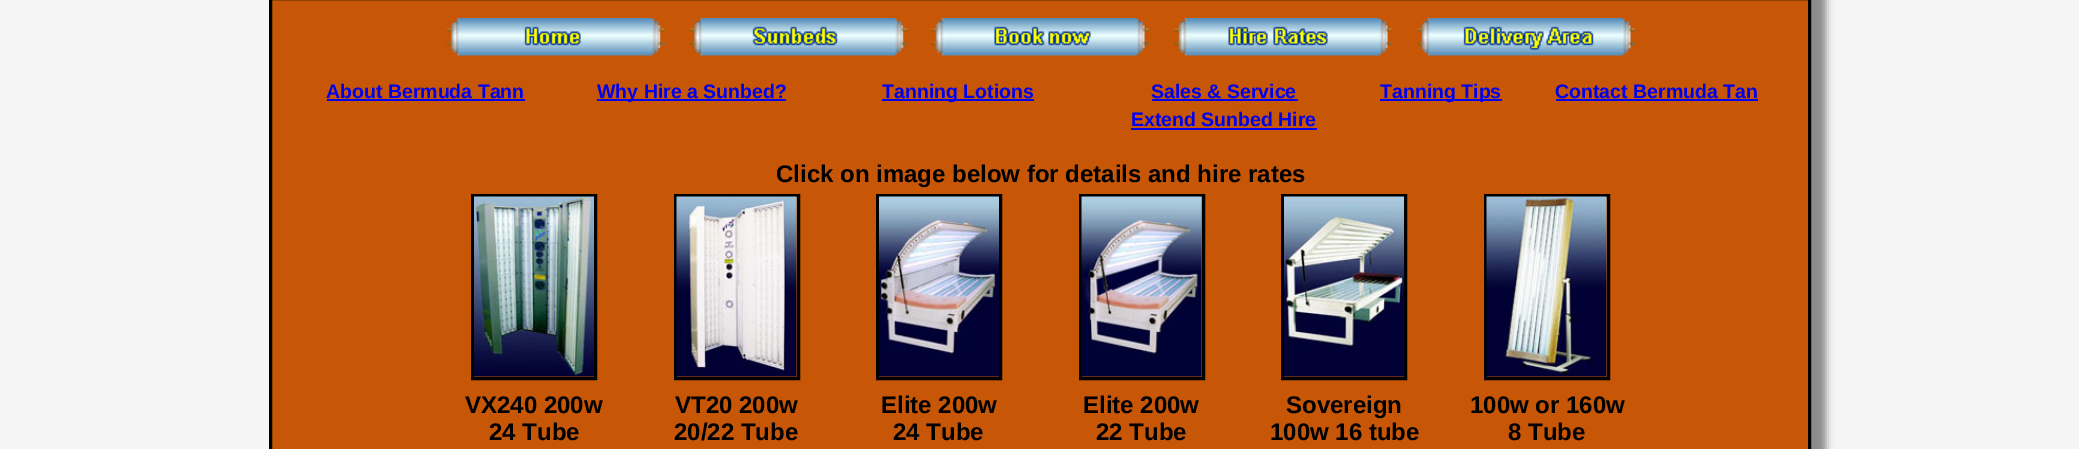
%!PS
<< /PageSize [2079 449] /PageUsesTransparency true >> setpagedevice
/mt/moveto load def
/li/lineto load def
/cp/closepath load def
/fl/fill load def
/st/stroke load def
/gs/gsave load def
/gr/grestore load def
/lw/setlinewidth load def
/co { dup -16 bitshift 255 div exch dup -8 bitshift 255 and 255 div exch 255 and 255 div setrgbcolor } def
/fn { [ exch dup neg 0 0 3 -1 roll 0 0 ] selectfont } def
/tx { co fn moveto show } def
/bx { co rectfill } def
/al { dup .setfillconstantalpha .setstrokeconstantalpha } def
/rr { 5 dict begin { /r /h /w /y /x } { exch def } forall
  x r add y moveto x w add y 2 copy h add r arct x w add y h add x 1 index r arct
  x y h add x y r arct x y 2 copy exch w add exch r arct closepath end } def
/sh { 12 dict begin { /a /b /q /h /w /y /x } { exch def } forall gsave /was 0 def
  9 -2 -9 { dup b mul 4 div /e exch def 1 sub .425 mul 2.718 exch exp 1 add a .99 .min exch div /now exch def
    1 1 now sub 1 was sub div sub al /was now def
    w h .min e 2 mul add 0 gt { x e sub y e sub w e 2 mul add h e 2 mul add
      q e add b .6 mul add w h .min 2 div e add .min 0 .max rr fill } if } for grestore end } def
/im { 5 dict begin { /h /w /y /x /name } { exch def } forall
  gsave x y translate w h scale
  w h 8 [w 0 0 h 0 0] name (r) file false 3 colorimage grestore end } def
0 .pushpdf14devicefilter
0 449 translate 1 -1 scale
4 setmiterlimit
0 0 2079 449 16#F5F5F5 bx
16#888888 co
284 -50 1542 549 38 4 1 sh
16#C75606 co
270.5 -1.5 mt 1809.5 -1.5 li 1809.5 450.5 li 270.5 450.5 li cp gs fl gr
16#000000 co
3 lw
st
(media/1.raw) 447 18 218 38 im
(media/2.raw) 690 18 218 38 im
(media/3.raw) 931 18 218 38 im
(media/4.raw) 1174 18 218 38 im
(media/5.raw) 1417 18 218 38 im
327 99 198 2 16#0000EE bx
597 99 189 2 16#0000EE bx
882 99 152 2 16#0000EE bx
1152 99 146 2 16#0000EE bx
1380 99 122 2 16#0000EE bx
1556 99 202 2 16#0000EE bx
1131 128 186 2 16#0000EE bx
16#000000 co
472.5 195.5 123 183 rectstroke
(media/6.raw) 474 196 120 181 im
675.5 195.5 123 183 rectstroke
(media/7.raw) 676 196 121 181 im
877.5 195.5 123 183 rectstroke
(media/8.raw) 879 196 120 181 im
1080.5 195.5 123 183 rectstroke
(media/9.raw) 1081 196 121 181 im
1282.5 195.5 123 183 rectstroke
(media/10.raw) 1284 196 120 181 im
1485.5 195.5 123 183 rectstroke
(media/11.raw) 1486 196 121 181 im
(About Bermuda Tann) 326 98 /LiberationSans-Bold 19.5 16#0000EE tx
(Why Hire a Sunbed?) 597 98 /LiberationSans-Bold 19.5 16#0000EE tx
(Tanning Lotions) 882 98 /LiberationSans-Bold 19.5 16#0000EE tx
(Sales & Service) 1151 98 /LiberationSans-Bold 19.5 16#0000EE tx
(Tanning Tips) 1380 98 /LiberationSans-Bold 19.5 16#0000EE tx
(Contact Bermuda Tan) 1555 98 /LiberationSans-Bold 19.5 16#0000EE tx
(Extend Sunbed Hire) 1131 126 /LiberationSans-Bold 19.5 16#0000EE tx
(Click on image below for details and hire rates) 776 182 /LiberationSans-Bold 24 16#000000 tx
(VX240 200w) 465 413 /LiberationSans-Bold 24 16#000000 tx
(24 Tube) 489 440 /LiberationSans-Bold 24 16#000000 tx
(VT20 200w) 675 413 /LiberationSans-Bold 24 16#000000 tx
(20/22 Tube) 674 440 /LiberationSans-Bold 24 16#000000 tx
(Elite 200w) 881 413 /LiberationSans-Bold 24 16#000000 tx
(24 Tube) 893 440 /LiberationSans-Bold 24 16#000000 tx
(Elite 200w) 1083 413 /LiberationSans-Bold 24 16#000000 tx
(22 Tube) 1096 440 /LiberationSans-Bold 24 16#000000 tx
(Sovereign) 1286 413 /LiberationSans-Bold 24 16#000000 tx
(100w 16 tube) 1270 440 /LiberationSans-Bold 24 16#000000 tx
(100w or 160w) 1470 413 /LiberationSans-Bold 24 16#000000 tx
(8 Tube) 1508 440 /LiberationSans-Bold 24 16#000000 tx
.poppdf14devicefilter showpage
